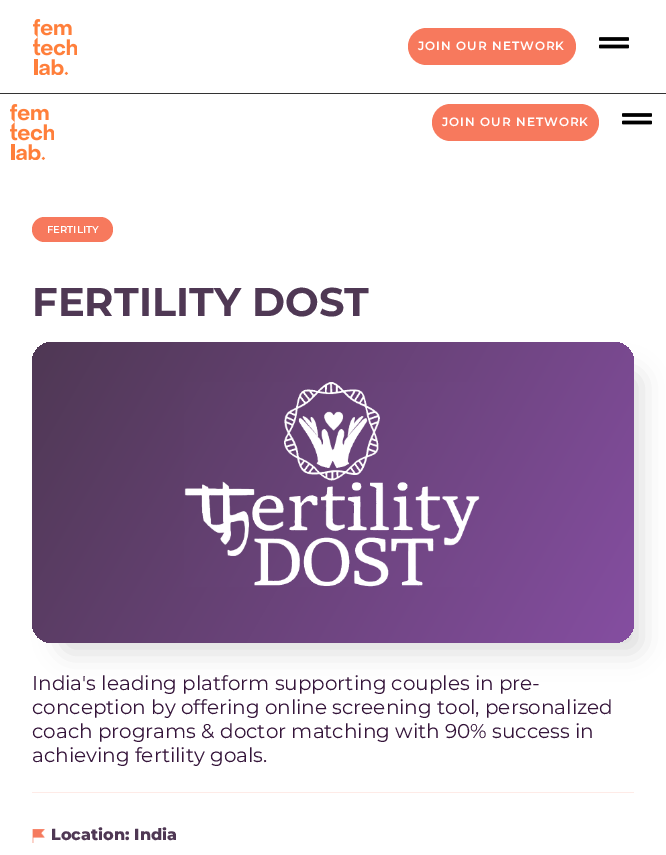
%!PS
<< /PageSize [666 855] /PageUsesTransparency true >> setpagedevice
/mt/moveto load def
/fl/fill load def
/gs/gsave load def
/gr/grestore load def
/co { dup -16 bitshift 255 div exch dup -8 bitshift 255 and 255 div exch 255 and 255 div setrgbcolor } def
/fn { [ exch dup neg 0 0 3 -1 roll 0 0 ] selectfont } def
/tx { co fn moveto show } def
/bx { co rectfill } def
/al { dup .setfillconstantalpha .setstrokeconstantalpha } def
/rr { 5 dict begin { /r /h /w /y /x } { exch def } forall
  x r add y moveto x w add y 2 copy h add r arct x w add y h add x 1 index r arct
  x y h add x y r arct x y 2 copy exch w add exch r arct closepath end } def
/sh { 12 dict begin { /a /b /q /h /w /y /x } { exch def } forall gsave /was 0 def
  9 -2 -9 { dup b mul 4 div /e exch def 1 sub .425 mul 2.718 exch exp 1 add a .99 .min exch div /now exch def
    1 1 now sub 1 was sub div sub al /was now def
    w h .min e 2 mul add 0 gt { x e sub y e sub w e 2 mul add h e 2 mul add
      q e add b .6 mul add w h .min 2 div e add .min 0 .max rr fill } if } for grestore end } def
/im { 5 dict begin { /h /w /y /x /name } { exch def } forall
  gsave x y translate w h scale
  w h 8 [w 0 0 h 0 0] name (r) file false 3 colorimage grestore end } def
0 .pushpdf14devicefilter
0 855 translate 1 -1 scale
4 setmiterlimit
0 0 666 855 16#FFFFFF bx
0 93 666 1 16#333333 bx
(media/1.raw) 33 19 44 56 im
16#F7795D co
408 28 168 37 18.5 rr fl
(media/2.raw) 599 37 30 12 im
(media/1.raw) 10 104 44 56 im
432 104 167 37 18.5 rr fl
(media/2.raw) 622 113 30 12 im
32 217 81 25 12.5 rr fl
16#828282 co
60 372 582 281 10 13 .28 sh
gs 32 342 602 301 20 rr clip newpath
<< /ShadingType 2 /ColorSpace /DeviceRGB /Coords [624 660 42 325] /Extend [true true] /Function << /FunctionType 2 /Domain [0 1] /C0 [.522 .306 .631] /C1 [.31 .22 .329] /N 1 >> >> shfill gr
(media/3.raw) 184 382 296 205 im
32 792 602 1 16#FEEBE7 bx
(media/4.raw) 32 829 13 14 im
/Montserrat-SemiBold 12 fn
16#FFFFFF co
418 50 mt 1 0 (JOIN OUR NETWORK) ashow
442 126 mt 1 0 (JOIN OUR NETWORK) ashow
(FERTILITY) 47 233 /Montserrat-SemiBold 10 16#FFFFFF tx
(FERTILITY DOST) 32 316 /Montserrat-Bold 40 16#4F3854 tx
(India's leading platform supporting couples in pre-) 32 690 /Montserrat-Regular 20 16#35153A tx
(conception by offering online screening tool, personalized) 32 714 /Montserrat-Regular 20 16#35153A tx
(coach programs & doctor matching with 90% success in) 32 738 /Montserrat-Regular 20 16#35153A tx
(achieving fertility goals.) 32 762 /Montserrat-Regular 20 16#35153A tx
(Location: India) 51 840 /Montserrat-ExtraBold 16 16#4F3854 tx
.poppdf14devicefilter showpage
